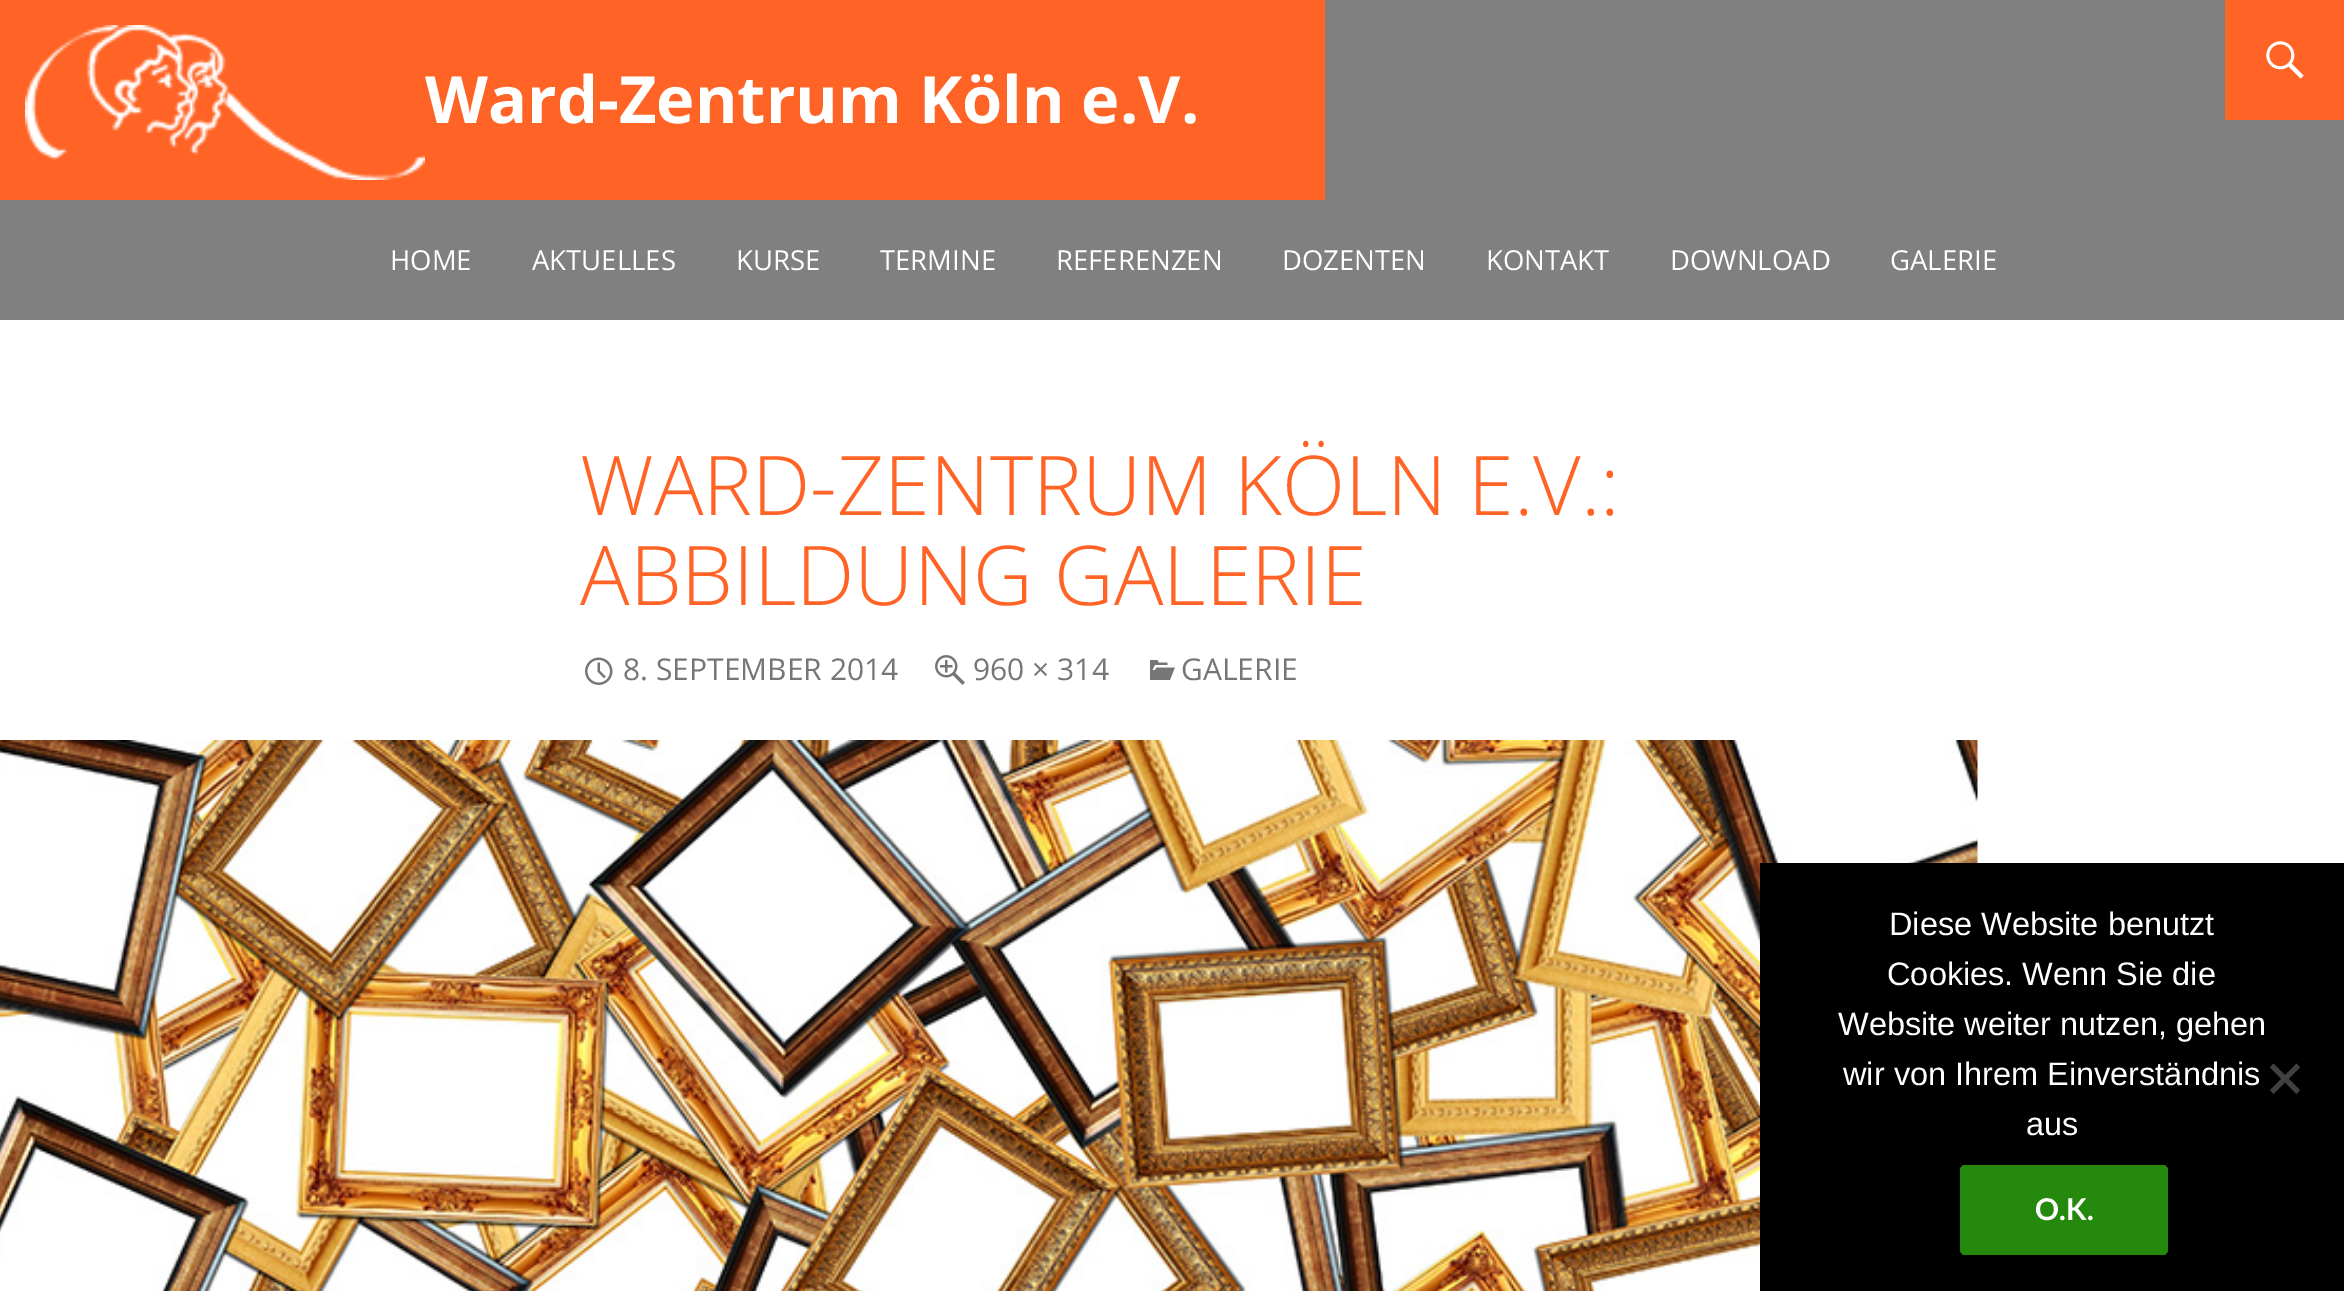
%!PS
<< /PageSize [2344 1291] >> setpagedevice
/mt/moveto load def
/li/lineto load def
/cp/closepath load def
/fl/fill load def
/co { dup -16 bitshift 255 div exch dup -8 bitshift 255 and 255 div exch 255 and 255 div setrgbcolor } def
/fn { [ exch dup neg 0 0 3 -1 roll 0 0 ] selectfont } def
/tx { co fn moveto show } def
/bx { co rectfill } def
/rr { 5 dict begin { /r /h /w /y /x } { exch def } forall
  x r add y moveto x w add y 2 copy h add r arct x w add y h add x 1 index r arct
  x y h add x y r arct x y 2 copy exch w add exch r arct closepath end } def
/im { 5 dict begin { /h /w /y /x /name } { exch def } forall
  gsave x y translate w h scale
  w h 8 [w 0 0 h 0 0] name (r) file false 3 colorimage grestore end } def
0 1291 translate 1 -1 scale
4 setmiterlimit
0 0 2344 1291 16#FFFFFF bx
0 0 2344 320 16#808080 bx
0 0 1325 200 16#FF6325 bx
(media/1.raw) 25 25 400 155 im
2225 0 119 120 16#FF6325 bx
(media/2.raw) 2266 41 38 38 im
(media/3.raw) 585 657 28 28 im
(media/4.raw) 935 655 30 30 im
(media/5.raw) 1150 660 25 20 im
(media/6.raw) 0 740 1978 551 im
1760 863 584 428 16#000000 bx
16#404040 co
2296.5 1063.5 mt 2300 1067.5 li 2273.5 1094 li 2270 1090 li cp fl
2270 1067.5 mt 2273.5 1063.5 li 2300 1090 li 2296.5 1094 li cp fl
16#24890D co
1960 1165 208 90 5 rr fl
(Ward-Zentrum Köln e.V.) 425 123 /OpenSans-Bold 65 16#FFFFFF tx
(HOME) 390 270 /OpenSans-Regular 27.5 16#FFFFFF tx
(AKTUELLES) 532 270 /OpenSans-Regular 27.5 16#FFFFFF tx
(KURSE) 736 270 /OpenSans-Regular 27.5 16#FFFFFF tx
(TERMINE) 880 270 /OpenSans-Regular 27.5 16#FFFFFF tx
(REFERENZEN) 1056 270 /OpenSans-Regular 27.5 16#FFFFFF tx
(DOZENTEN) 1282 270 /OpenSans-Regular 27.5 16#FFFFFF tx
(KONTAKT) 1486 270 /OpenSans-Regular 27.5 16#FFFFFF tx
(DOWNLOAD) 1670 270 /OpenSans-Regular 27.5 16#FFFFFF tx
(GALERIE) 1890 270 /OpenSans-Regular 27.5 16#FFFFFF tx
(WARD-ZENTRUM KÖLN E.V.:) 580 515 /OpenSans-Light 82.5 16#FF6325 tx
(ABBILDUNG GALERIE) 580 605 /OpenSans-Light 82.5 16#FF6325 tx
(8. SEPTEMBER 2014) 623 680 /OpenSans-Regular 30 16#767676 tx
(960 × 314) 973 680 /OpenSans-Regular 30 16#767676 tx
(GALERIE) 1181 680 /OpenSans-Regular 30 16#767676 tx
(Diese Website benutzt) 1889 935 /LiberationSans-Regular 32.5 16#FFFFFF tx
(Cookies. Wenn Sie die) 1887 985 /LiberationSans-Regular 32.5 16#FFFFFF tx
(Website weiter nutzen, gehen) 1838 1035 /LiberationSans-Regular 32.5 16#FFFFFF tx
(wir von Ihrem Einverständnis) 1843 1085 /LiberationSans-Regular 32.5 16#FFFFFF tx
(aus) 2026 1135 /LiberationSans-Regular 32.5 16#FFFFFF tx
(O.K.) 2035 1220 /Lato-Bold 30 16#FFFFFF tx
showpage
